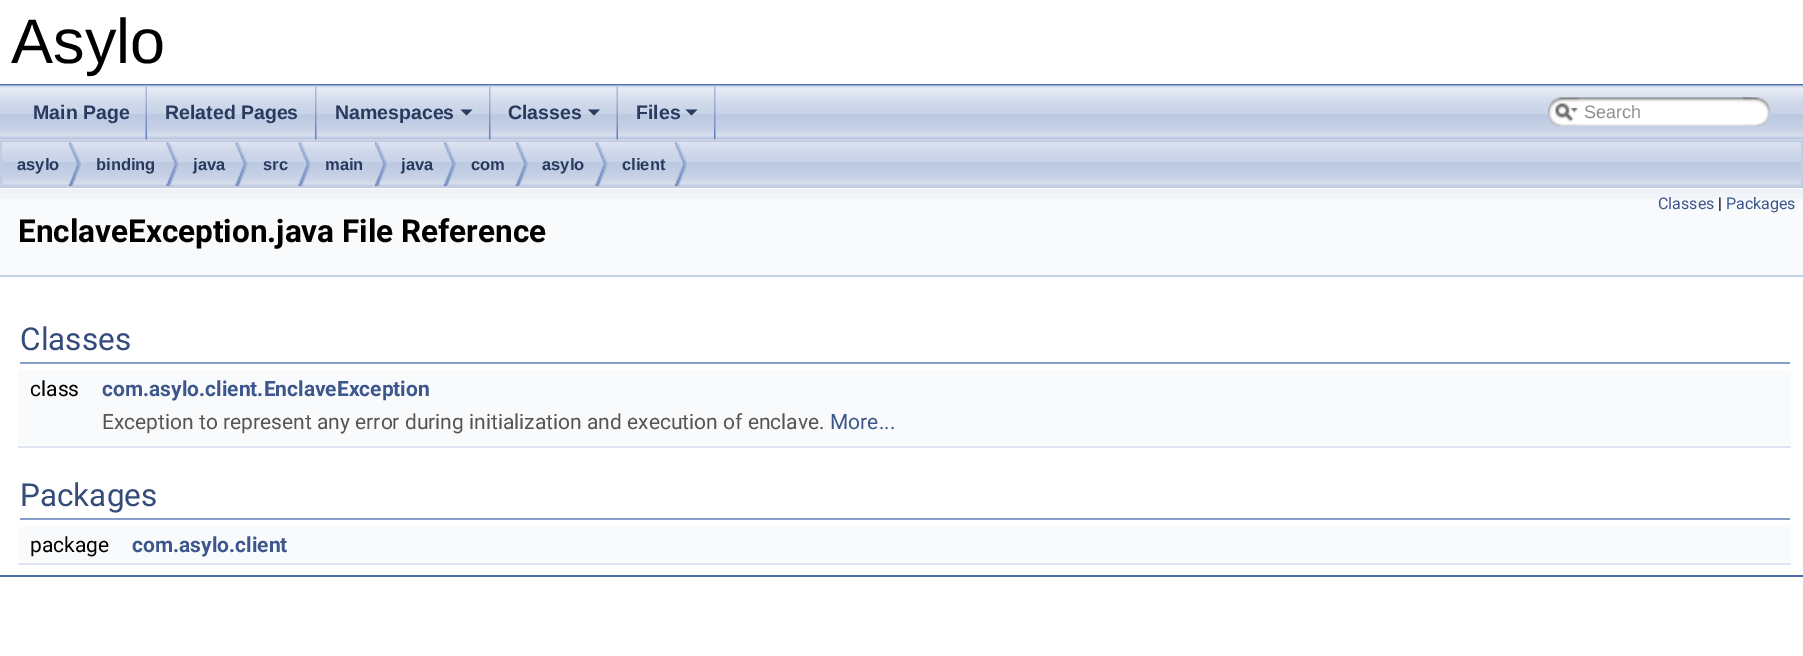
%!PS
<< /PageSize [1803 656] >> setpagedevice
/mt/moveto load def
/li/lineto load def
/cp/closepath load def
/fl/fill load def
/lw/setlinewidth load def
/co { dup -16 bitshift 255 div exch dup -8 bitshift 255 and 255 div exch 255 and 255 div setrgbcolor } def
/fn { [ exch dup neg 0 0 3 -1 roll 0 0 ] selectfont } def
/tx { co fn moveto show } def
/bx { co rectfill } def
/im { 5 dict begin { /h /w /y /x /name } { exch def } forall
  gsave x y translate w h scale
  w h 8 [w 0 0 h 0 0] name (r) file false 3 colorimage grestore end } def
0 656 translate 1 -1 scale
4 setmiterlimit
0 0 1803 656 16#FFFFFF bx
0 84 1803 2 16#5373B4 bx
(media/8.raw) 0 139 1803 47 im
(media/1.raw) 0 85 1803 55 im
(media/2.raw) 145 85 2 55 im
(media/3.raw) 315 85 2 55 im
(media/3.raw) 489 85 2 55 im
16#283A5D co
460.5 109.5 mt 472.5 109.5 li 466.5 115.5 li cp fl
(media/2.raw) 616 85 2 55 im
588 109.5 mt 600 109.5 li 594 115.5 li cp fl
(media/3.raw) 714 85 2 55 im
685.5 109.5 mt 697.5 109.5 li 691.5 115.5 li cp fl
(media/4.raw) 1548 97 30 29 im
(media/5.raw) 1555 103 23 19 im
(media/6.raw) 1578 97 173 29 im
(media/7.raw) 1743 97 27 29 im
16#C2CDE4 co
2 lw
1 141 1801 46 rectstroke
(media/9.raw) 69 142 12 44 im
(media/10.raw) 166 142 13 44 im
(media/10.raw) 235 142 13 44 im
(media/11.raw) 298 142 13 44 im
(media/12.raw) 375 142 12 44 im
(media/12.raw) 444 142 12 44 im
(media/9.raw) 516 142 12 44 im
(media/11.raw) 595 142 13 44 im
(media/9.raw) 675 142 12 44 im
0 188 1803 87 16#F9FAFC bx
(media/13.raw) 0 189 1803 10 im
0 275 1803 2 16#C4CFE5 bx
20 362 1770 2 16#879ECB bx
18 371 1773 34 16#F9FAFC bx
18 405 1773 39 16#F9FAFC bx
18 446 1773 2 16#DEE4F0 bx
20 518 1770 2 16#879ECB bx
18 527 1773 34 16#F9FAFC bx
18 563 1773 2 16#DEE4F0 bx
0 575 1803 2 16#4A6AAA bx
(Asylo) 11 63 /LiberationSans-Regular 63 16#000000 tx
(Main Page) 33 119 /LiberationSans-Bold 19.5 16#283A5D tx
(Related Pages) 165 119 /LiberationSans-Bold 19.5 16#283A5D tx
(Namespaces) 335 119 /LiberationSans-Bold 19.5 16#283A5D tx
(Classes) 508 119 /LiberationSans-Bold 19.5 16#283A5D tx
(Files) 636 119 /LiberationSans-Bold 19.5 16#283A5D tx
(Search) 1584 118 /LiberationSans-Regular 18 16#909090 tx
(asylo) 17 170 /LiberationSans-Bold 16.5 16#283A5D tx
(binding) 96 170 /LiberationSans-Bold 16.5 16#283A5D tx
(java) 193 170 /LiberationSans-Bold 16.5 16#283A5D tx
(src) 263 170 /LiberationSans-Bold 16.5 16#283A5D tx
(main) 325 170 /LiberationSans-Bold 16.5 16#283A5D tx
(java) 401 170 /LiberationSans-Bold 16.5 16#283A5D tx
(com) 471 170 /LiberationSans-Bold 16.5 16#283A5D tx
(asylo) 542 170 /LiberationSans-Bold 16.5 16#283A5D tx
(client) 622 170 /LiberationSans-Bold 16.5 16#283A5D tx
(Classes) 1658 209 /Roboto-Regular 16 16#3D578C tx
(|) 1718 209 /Roboto-Regular 16 16#000000 tx
(Packages) 1726 209 /Roboto-Regular 16 16#3D578C tx
(EnclaveException.java File Reference) 18 242 /Roboto-Bold 31.5 16#000000 tx
(Classes) 20 350 /Roboto-Regular 31.5 16#354C7B tx
(class) 30 396 /Roboto-Regular 21 16#000000 tx
(com.asylo.client.EnclaveException) 102 396 /Roboto-Bold 21 16#3D578C tx
(Exception to represent any error during initialization and execution of enclave.) 102 429 /Roboto-Regular 21 16#555555 tx
(More...) 830 429 /Roboto-Regular 21 16#3D578C tx
(Packages) 20 506 /Roboto-Regular 31.5 16#354C7B tx
(package) 30 552 /Roboto-Regular 21 16#000000 tx
(com.asylo.client) 132 552 /Roboto-Bold 21 16#3D578C tx
showpage
